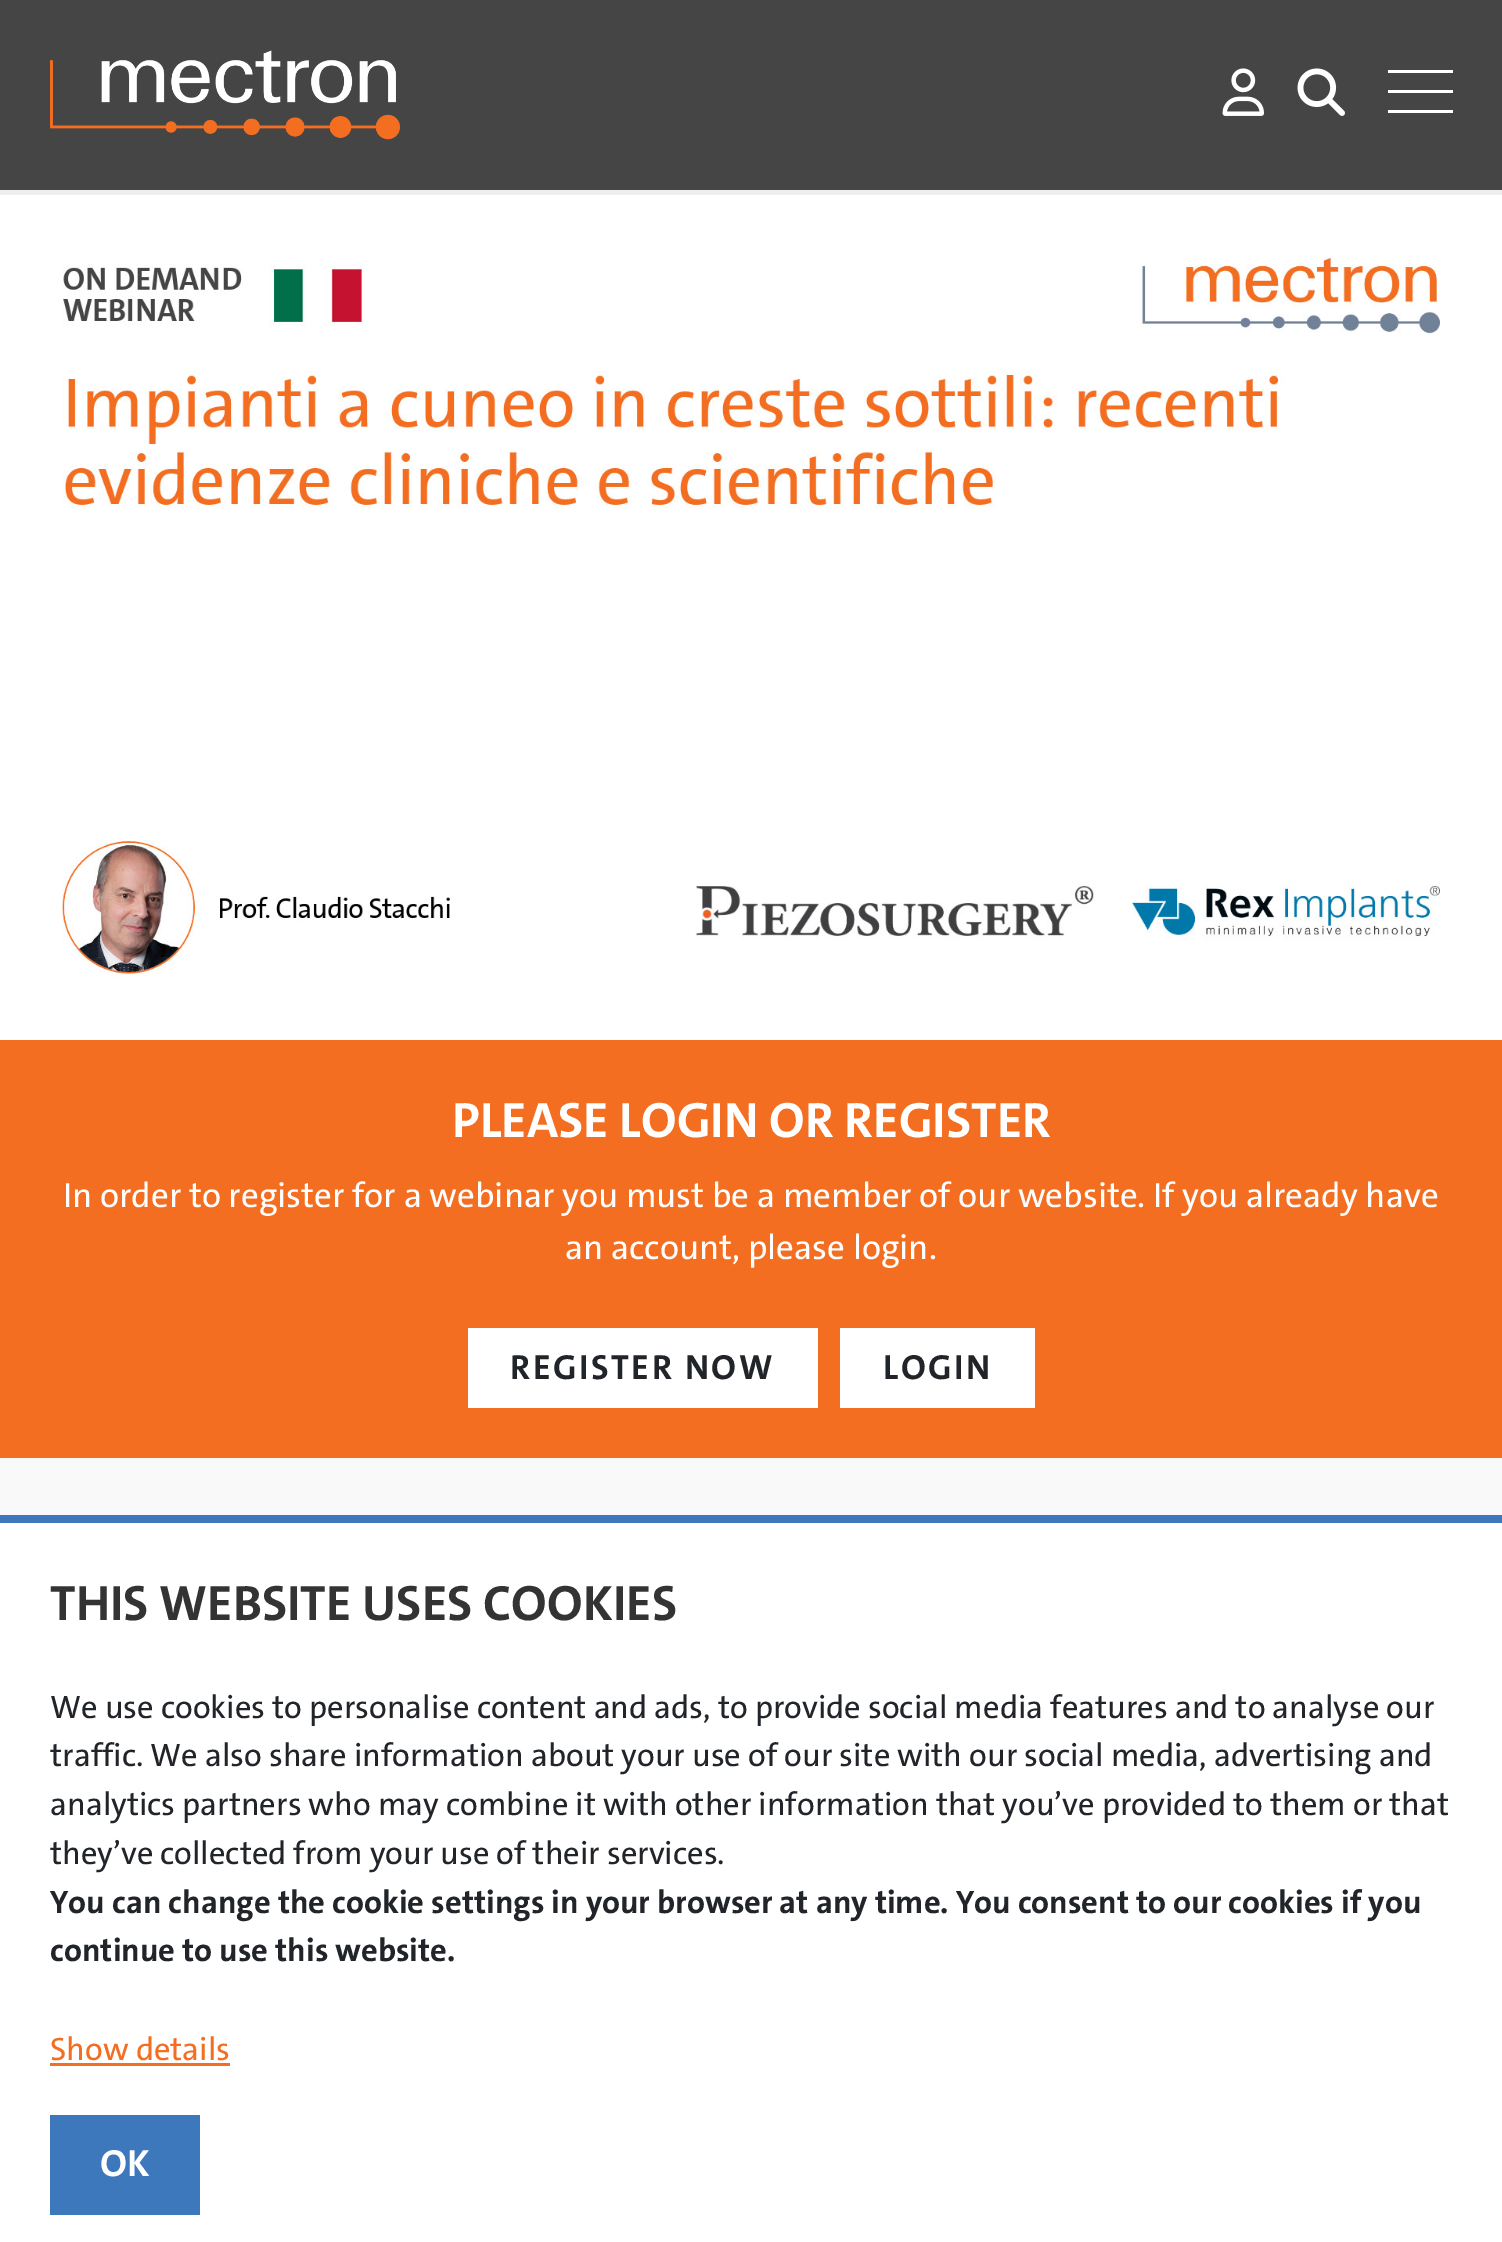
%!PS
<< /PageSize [1502 2242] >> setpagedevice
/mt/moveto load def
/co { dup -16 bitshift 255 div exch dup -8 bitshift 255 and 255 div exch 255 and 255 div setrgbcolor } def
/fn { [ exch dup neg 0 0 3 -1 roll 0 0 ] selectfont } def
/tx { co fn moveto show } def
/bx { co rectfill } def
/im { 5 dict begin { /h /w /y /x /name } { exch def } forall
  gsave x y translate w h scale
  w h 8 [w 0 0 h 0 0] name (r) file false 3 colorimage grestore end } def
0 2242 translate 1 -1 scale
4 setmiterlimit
0 0 1502 2242 16#FFFFFF bx
0 0 1502 190 16#454545 bx
(media/1.raw) 50 50 350 90 im
(media/2.raw) 1222 68 42 48 im
(media/3.raw) 1297 68 48 48 im
1388 70 65 3 16#FFFFFF bx
1388 90 65 3 16#FFFFFF bx
1388 110 65 3 16#FFFFFF bx
0 190 1502 5 16#EEEEEE bx
(media/4.raw) 62 257 1378 720 im
0 1040 1502 418 16#F36E21 bx
468 1328 350 80 16#FFFFFF bx
840 1328 195 80 16#FFFFFF bx
0 1458 1502 57 16#F9F9F9 bx
0 1515 1502 8 16#3D78BC bx
50 2063 180 3 16#F36E21 bx
50 2115 150 100 16#3D78BC bx
(PLEASE LOGIN OR REGISTER) 452 1137 /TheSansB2-Bold 50 16#FFFFFF tx
(In order to register for a webinar you must be a member of our website. If you already have) 63 1207 /TheSansB2-Regular 35 16#FFFFFF tx
(an account, please login.) 565 1259 /TheSansB2-Regular 35 16#FFFFFF tx
/TheSansB2-Bold 35 fn
16#212529 co
510 1379 mt 2.5 0 (REGISTER NOW) ashow
883 1379 mt 2.5 0 (LOGIN) ashow
(THIS WEBSITE USES COOKIES) 50 1620 /TheSansB2-Bold 50 16#333333 tx
(We use cookies to personalise content and ads, to provide social media features and to analyse our) 50 1718 /TheSansB2-Regular 32.5 16#212529 tx
(traffic. We also share information about your use of our site with our social media, advertising and) 50 1766 /TheSansB2-Regular 32.5 16#212529 tx
(analytics partners who may combine it with other information that you’ve provided to them or that) 50 1815 /TheSansB2-Regular 32.5 16#212529 tx
(they’ve collected from your use of their services.) 50 1864 /TheSansB2-Regular 32.5 16#212529 tx
(You can change the cookie settings in your browser at any time. You consent to our cookies if you) 50 1913 /TheSansB2-Bold 32.5 16#212529 tx
(continue to use this website.) 50 1961 /TheSansB2-Bold 32.5 16#212529 tx
(Show details) 50 2060 /TheSansB2-Regular 32.5 16#F36E21 tx
(OK) 100 2176 /TheSansB2-Bold 38 16#FFFFFF tx
showpage
